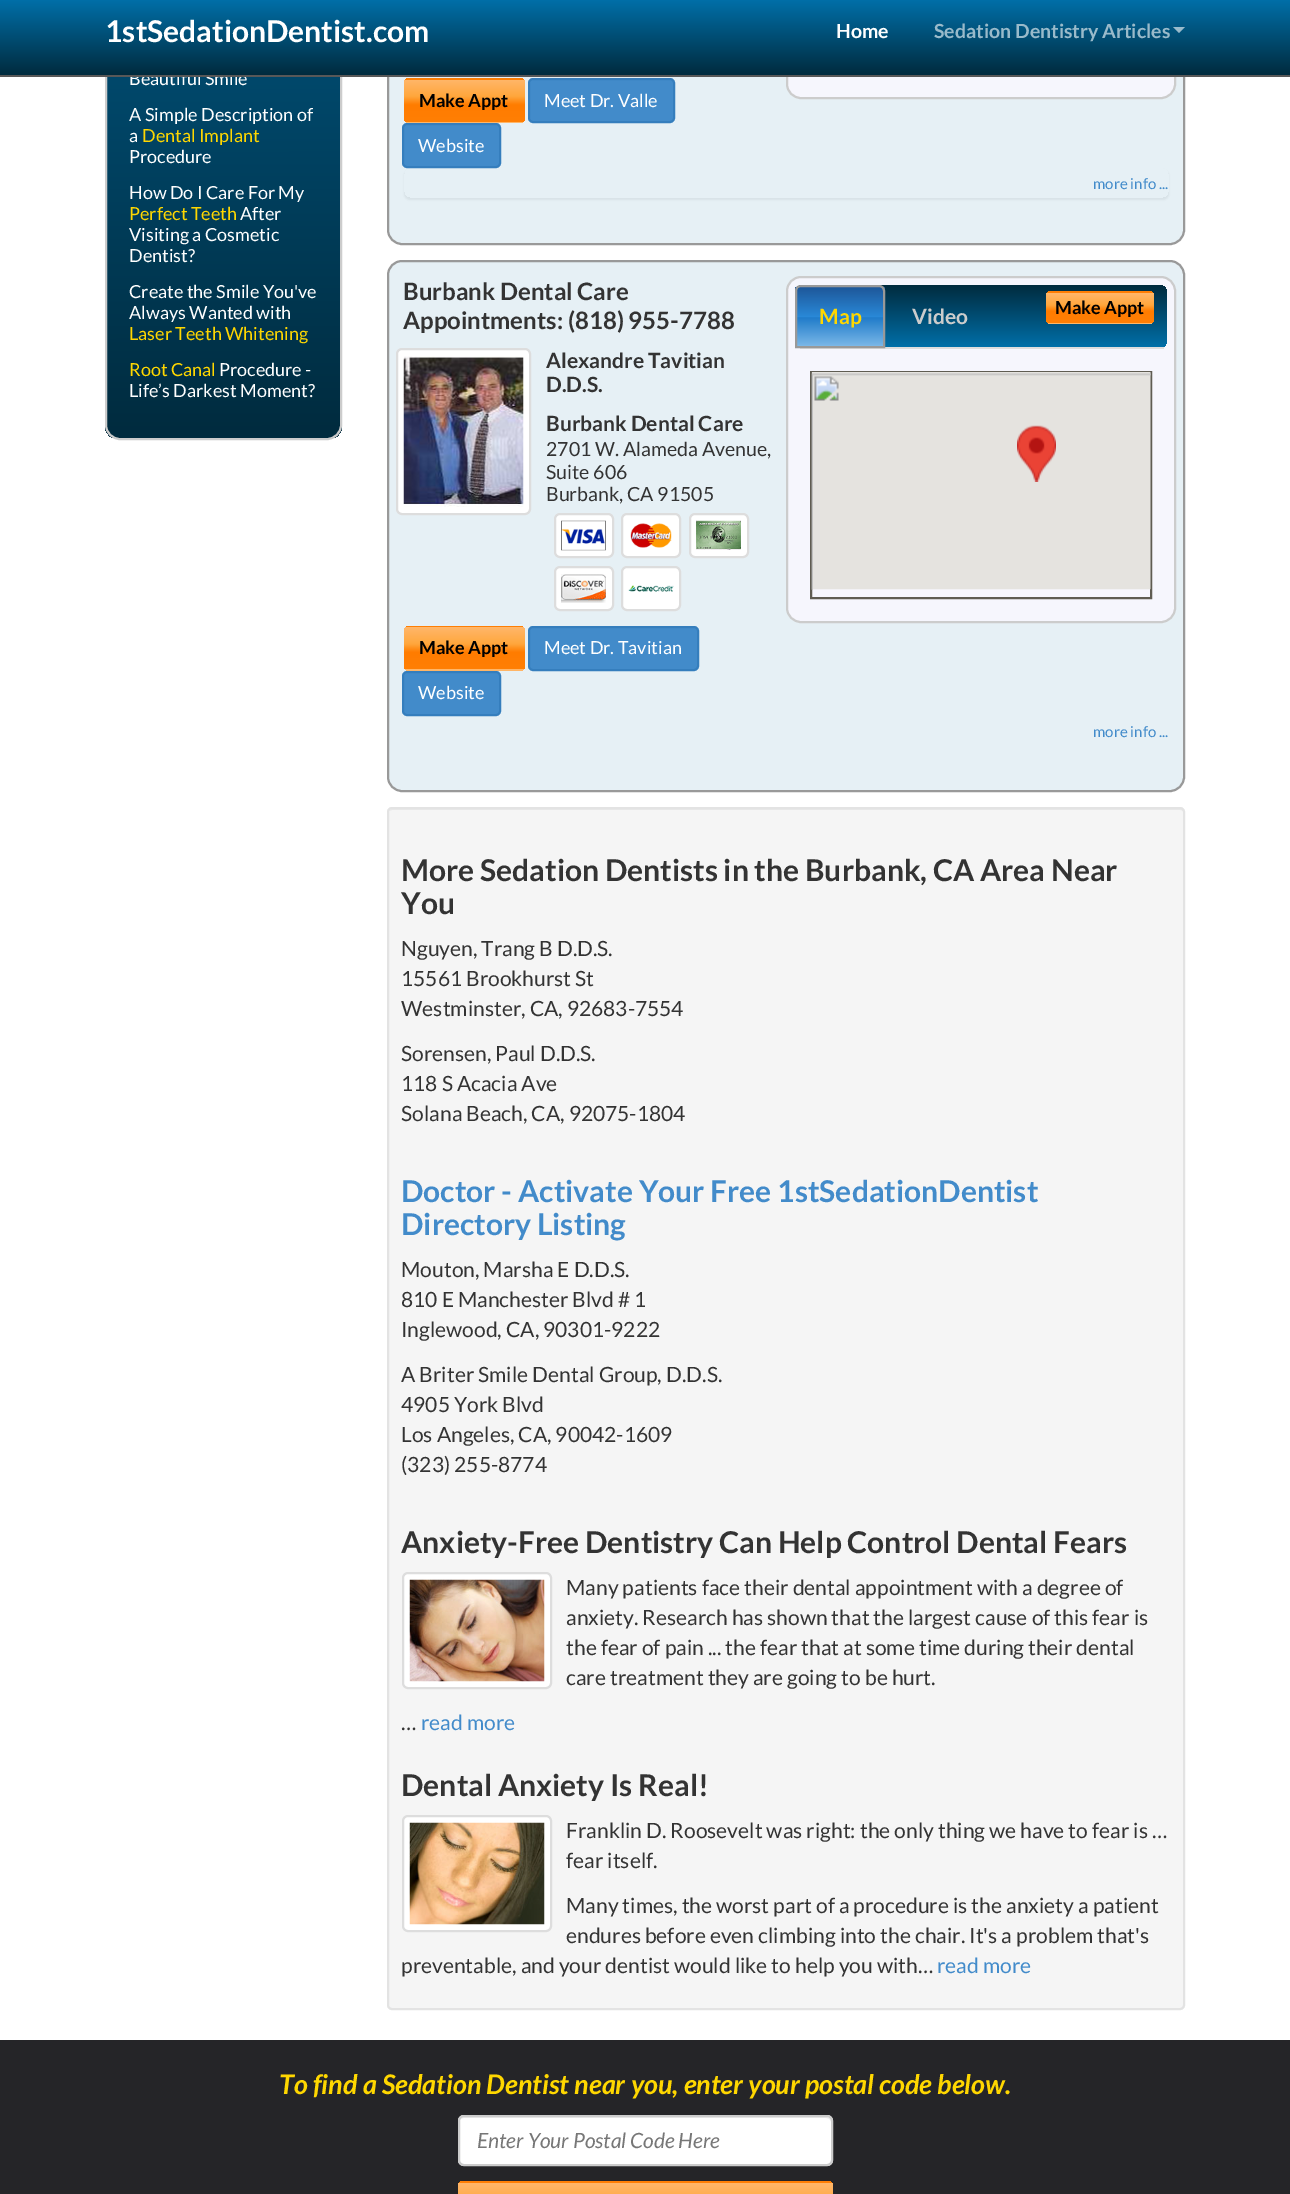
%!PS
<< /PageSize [1290 2194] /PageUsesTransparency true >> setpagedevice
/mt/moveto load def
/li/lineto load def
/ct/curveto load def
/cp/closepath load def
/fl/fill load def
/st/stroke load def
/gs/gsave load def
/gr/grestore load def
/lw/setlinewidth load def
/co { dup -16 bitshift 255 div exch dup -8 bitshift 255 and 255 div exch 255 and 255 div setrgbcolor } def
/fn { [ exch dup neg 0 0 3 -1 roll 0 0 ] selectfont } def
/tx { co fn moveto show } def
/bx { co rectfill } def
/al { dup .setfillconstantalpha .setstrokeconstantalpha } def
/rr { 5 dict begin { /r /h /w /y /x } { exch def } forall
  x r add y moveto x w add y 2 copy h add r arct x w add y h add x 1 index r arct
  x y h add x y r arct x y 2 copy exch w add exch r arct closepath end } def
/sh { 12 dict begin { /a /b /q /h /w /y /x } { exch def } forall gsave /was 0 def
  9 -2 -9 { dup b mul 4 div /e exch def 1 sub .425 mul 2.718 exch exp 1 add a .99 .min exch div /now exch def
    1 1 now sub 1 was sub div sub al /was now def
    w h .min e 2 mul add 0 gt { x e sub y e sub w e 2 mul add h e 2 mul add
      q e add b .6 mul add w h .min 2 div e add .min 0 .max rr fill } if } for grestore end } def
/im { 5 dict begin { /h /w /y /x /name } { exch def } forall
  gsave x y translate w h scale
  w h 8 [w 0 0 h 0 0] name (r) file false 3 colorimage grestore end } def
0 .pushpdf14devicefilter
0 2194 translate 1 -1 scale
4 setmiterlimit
0 0 1290 2194 16#FFFFFF bx
gs
105 -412 237 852 15 rr clip newpath
gs 105 77 mt 342 77 li 342 438 li 105 438 li cp clip newpath
<< /ShadingType 2 /ColorSpace /DeviceRGB /Coords [223 -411 224 438] /Extend [true true] /Function << /FunctionType 2 /Domain [0 1] /C0 [0 .435 .659] /C1 [0 .169 .243] /N 1 >> >> shfill gr
gr
16#CCCCCC co
2 lw
106 -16 235 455 14 rr st
16#E6F0F5 co
388 -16 796 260 14 rr gs fl gr
16#999999 co
st
16#F6F6FD co
787 -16 388 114 14 rr gs fl gr
16#CCCCCC co
st
gs
404 78 121 45 5 rr clip newpath
gs 404 78 mt 525 78 li 525 80 li 404 80 li cp clip newpath
<< /ShadingType 2 /ColorSpace /DeviceRGB /Coords [464 37 464 80] /Extend [true true] /Function << /FunctionType 3 /Domain [0 1] /Functions [<< /FunctionType 2 /Domain [0 1] /C0 [1 .718 .42] /C1 [1 .655 .239] /N 1 >> << /FunctionType 2 /Domain [0 1] /C0 [1 .655 .239] /C1 [1 .486 0] /N 1 >> << /FunctionType 2 /Domain [0 1] /C0 [1 .486 0] /C1 [1 .498 .016] /N 1 >>] /Bounds [.4 .6] /Encode [0 1 0 1 0 1] >> >> shfill gr
gs 404 80 mt 525 80 li 525 122 li 404 122 li cp clip newpath
<< /ShadingType 2 /ColorSpace /DeviceRGB /Coords [464 79 464 122] /Extend [true true] /Function << /FunctionType 3 /Domain [0 1] /Functions [<< /FunctionType 2 /Domain [0 1] /C0 [1 .718 .42] /C1 [1 .655 .239] /N 1 >> << /FunctionType 2 /Domain [0 1] /C0 [1 .655 .239] /C1 [1 .486 0] /N 1 >> << /FunctionType 2 /Domain [0 1] /C0 [1 .486 0] /C1 [1 .498 .016] /N 1 >>] /Bounds [.4 .6] /Encode [0 1 0 1 0 1] >> >> shfill gr
gs 404 122 mt 525 122 li 525 123 li 404 123 li cp clip newpath
<< /ShadingType 2 /ColorSpace /DeviceRGB /Coords [464 122 464 164] /Extend [true true] /Function << /FunctionType 3 /Domain [0 1] /Functions [<< /FunctionType 2 /Domain [0 1] /C0 [1 .718 .42] /C1 [1 .655 .239] /N 1 >> << /FunctionType 2 /Domain [0 1] /C0 [1 .655 .239] /C1 [1 .486 0] /N 1 >> << /FunctionType 2 /Domain [0 1] /C0 [1 .486 0] /C1 [1 .498 .016] /N 1 >>] /Bounds [.4 .6] /Encode [0 1 0 1 0 1] >> >> shfill gr
gr
16#428BCA co
529 79 145 43 4 rr gs fl gr
16#357EBD co
st
16#428BCA co
403 124 97 43 4 rr gs fl gr
16#357EBD co
st
gs
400 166 mt 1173 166 li 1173 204 li 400 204 li cp 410 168 mt 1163 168 li 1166.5 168 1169 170.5 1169 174 ct 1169 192 li 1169 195.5 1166.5 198 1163 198 ct 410 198 li 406.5 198 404 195.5 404 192 ct 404 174 li 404 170.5 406.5 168 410 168 ct cp eoclip newpath
16#000000 co
404 170 765 30 6 1 .05 sh
gr
16#E6F0F5 co
388 261 796 530 14 rr gs fl gr
16#999999 co
st
16#FFFFFF co
397 349 133 165 5 rr gs fl gr
16#DDDDDD co
st
(media/1.raw) 403 356 121 151 im
16#FFFFFF co
555 514 58 43 5 rr gs fl gr
16#DDDDDD co
st
(media/2.raw) 561 520 45 31 im
16#FFFFFF co
622 514 58 43 5 rr gs fl gr
16#DDDDDD co
st
(media/3.raw) 630 523 42 25 im
16#FFFFFF co
690 514 58 43 5 rr gs fl gr
16#DDDDDD co
st
(media/4.raw) 696 520 45 30 im
16#FFFFFF co
555 567 58 43 5 rr gs fl gr
16#DDDDDD co
st
(media/5.raw) 561 574 45 29 im
16#FFFFFF co
622 567 58 43 5 rr gs fl gr
16#DDDDDD co
st
(media/6.raw) 628 585 46 7 im
gs
404 626 121 45 5 rr clip newpath
gs 404 626 mt 525 626 li 525 627 li 404 627 li cp clip newpath
<< /ShadingType 2 /ColorSpace /DeviceRGB /Coords [464 585 464 627] /Extend [true true] /Function << /FunctionType 3 /Domain [0 1] /Functions [<< /FunctionType 2 /Domain [0 1] /C0 [1 .718 .42] /C1 [1 .655 .239] /N 1 >> << /FunctionType 2 /Domain [0 1] /C0 [1 .655 .239] /C1 [1 .486 0] /N 1 >> << /FunctionType 2 /Domain [0 1] /C0 [1 .486 0] /C1 [1 .498 .016] /N 1 >>] /Bounds [.4 .6] /Encode [0 1 0 1 0 1] >> >> shfill gr
gs 404 627 mt 525 627 li 525 669 li 404 669 li cp clip newpath
<< /ShadingType 2 /ColorSpace /DeviceRGB /Coords [464 627 464 669] /Extend [true true] /Function << /FunctionType 3 /Domain [0 1] /Functions [<< /FunctionType 2 /Domain [0 1] /C0 [1 .718 .42] /C1 [1 .655 .239] /N 1 >> << /FunctionType 2 /Domain [0 1] /C0 [1 .655 .239] /C1 [1 .486 0] /N 1 >> << /FunctionType 2 /Domain [0 1] /C0 [1 .486 0] /C1 [1 .498 .016] /N 1 >>] /Bounds [.4 .6] /Encode [0 1 0 1 0 1] >> >> shfill gr
gs 404 669 mt 525 669 li 525 671 li 404 671 li cp clip newpath
<< /ShadingType 2 /ColorSpace /DeviceRGB /Coords [464 669 464 711] /Extend [true true] /Function << /FunctionType 3 /Domain [0 1] /Functions [<< /FunctionType 2 /Domain [0 1] /C0 [1 .718 .42] /C1 [1 .655 .239] /N 1 >> << /FunctionType 2 /Domain [0 1] /C0 [1 .655 .239] /C1 [1 .486 0] /N 1 >> << /FunctionType 2 /Domain [0 1] /C0 [1 .486 0] /C1 [1 .498 .016] /N 1 >>] /Bounds [.4 .6] /Encode [0 1 0 1 0 1] >> >> shfill gr
gr
16#428BCA co
529 627 169 43 4 rr gs fl gr
16#357EBD co
st
16#428BCA co
403 672 97 43 4 rr gs fl gr
16#357EBD co
st
16#F6F6FD co
787 277 388 345 14 rr gs fl gr
16#CCCCCC co
st
gs
795 285 372 63 8 rr clip newpath
gs 803 285 mt 1159 285 li 1163.5 285 1167 288.5 1167 293 ct 1167 347 li 795 347 li 795 293 li 795 288.5 798.5 285 803 285 ct cp clip newpath
<< /ShadingType 2 /ColorSpace /DeviceRGB /Coords [981 285 981 347] /Extend [true true] /Function << /FunctionType 2 /Domain [0 1] /C0 [0 .169 .243] /C1 [0 .435 .659] /N 1 >> >> shfill gr
gr
800 347 364 2 16#DDDDDD bx
gs
801 285 mt 879 285 li 882.5 285 885 287.5 885 291 ct 885 348 li 795 348 li 795 291 li 795 287.5 797.5 285 801 285 ct cp clip newpath
gs 795 287 mt 885 287 li 885 346 li 795 346 li cp clip newpath
<< /ShadingType 2 /ColorSpace /DeviceRGB /Coords [840 287 840 347] /Extend [true true] /Function << /FunctionType 3 /Domain [0 1] /Functions [<< /FunctionType 2 /Domain [0 1] /C0 [.118 .341 .6] /C1 [.161 .537 .847] /N 1 >> << /FunctionType 2 /Domain [0 1] /C0 [.161 .537 .847] /C1 [.125 .486 .792] /N 1 >> << /FunctionType 2 /Domain [0 1] /C0 [.125 .486 .792] /C1 [.49 .725 .91] /N 1 >>] /Bounds [.5 .51] /Encode [0 1 0 1 0 1] >> >> shfill gr
gr
16#999999 co
801 286 mt 879 286 li 882 286 884 288 884 291 ct 884 347 li 796 347 li 796 291 li 796 288 798 286 801 286 ct cp st
16#5F5C52 co
811 372 340 226 rectstroke
(media/7.raw) 811 372 340 218 im
gs
1046 291 108 33 5 rr clip newpath
gs 1046 291 mt 1154 291 li 1154 293 li 1046 293 li cp clip newpath
<< /ShadingType 2 /ColorSpace /DeviceRGB /Coords [1100 263 1100 293] /Extend [true true] /Function << /FunctionType 3 /Domain [0 1] /Functions [<< /FunctionType 2 /Domain [0 1] /C0 [1 .718 .42] /C1 [1 .655 .239] /N 1 >> << /FunctionType 2 /Domain [0 1] /C0 [1 .655 .239] /C1 [1 .486 0] /N 1 >> << /FunctionType 2 /Domain [0 1] /C0 [1 .486 0] /C1 [1 .498 .016] /N 1 >>] /Bounds [.4 .6] /Encode [0 1 0 1 0 1] >> >> shfill gr
gs 1046 293 mt 1154 293 li 1154 323 li 1046 323 li cp clip newpath
<< /ShadingType 2 /ColorSpace /DeviceRGB /Coords [1100 293 1100 323] /Extend [true true] /Function << /FunctionType 3 /Domain [0 1] /Functions [<< /FunctionType 2 /Domain [0 1] /C0 [1 .718 .42] /C1 [1 .655 .239] /N 1 >> << /FunctionType 2 /Domain [0 1] /C0 [1 .655 .239] /C1 [1 .486 0] /N 1 >> << /FunctionType 2 /Domain [0 1] /C0 [1 .486 0] /C1 [1 .498 .016] /N 1 >>] /Bounds [.4 .6] /Encode [0 1 0 1 0 1] >> >> shfill gr
gs 1046 323 mt 1154 323 li 1154 324 li 1046 324 li cp clip newpath
<< /ShadingType 2 /ColorSpace /DeviceRGB /Coords [1100 323 1100 353] /Extend [true true] /Function << /FunctionType 3 /Domain [0 1] /Functions [<< /FunctionType 2 /Domain [0 1] /C0 [1 .718 .42] /C1 [1 .655 .239] /N 1 >> << /FunctionType 2 /Domain [0 1] /C0 [1 .655 .239] /C1 [1 .486 0] /N 1 >> << /FunctionType 2 /Domain [0 1] /C0 [1 .486 0] /C1 [1 .498 .016] /N 1 >>] /Bounds [.4 .6] /Encode [0 1 0 1 0 1] >> >> shfill gr
gr
16#F5F5F5 co
387 807 798 1203 5 rr fl
16#E9E9E9 co
392 810 mt 1180 810 li 1182 810 1184 811 1184 813 ct 1184 812 li 1184 810 1183 809 1181 809 ct 392 809 li 391 809 390 810 389 811 ct cp fl
16#E3E3E3 co
388 808 796 1201 4 rr st
16#FFFFFF co
403 1573 148 115 5 rr gs fl gr
16#DDDDDD co
st
(media/8.raw) 409 1579 136 103 im
16#FFFFFF co
403 1816 148 115 5 rr gs fl gr
16#DDDDDD co
st
(media/9.raw) 409 1822 136 103 im
0 2040 1290 154 16#252528 bx
16#FFFFFF co
458 2115 375 51 6 rr fl
16#ECECEC co
464 2118 mt 826 2118 li 829 2118 831 2120 831 2122 ct 831 2119 829 2117 826 2117 ct 464 2117 li 461 2117 459 2119 459 2122 ct 459 2120 461 2118 464 2118 ct cp fl
16#CCCCCC co
459 2116 373 49 5 rr st
gs
458 2181 375 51 6 rr clip newpath
gs 458 2181 mt 833 2181 li 833 2183 li 458 2183 li cp clip newpath
<< /ShadingType 2 /ColorSpace /DeviceRGB /Coords [645 2135 645 2183] /Extend [true true] /Function << /FunctionType 3 /Domain [0 1] /Functions [<< /FunctionType 2 /Domain [0 1] /C0 [1 .718 .42] /C1 [1 .655 .239] /N 1 >> << /FunctionType 2 /Domain [0 1] /C0 [1 .655 .239] /C1 [1 .486 0] /N 1 >> << /FunctionType 2 /Domain [0 1] /C0 [1 .486 0] /C1 [1 .498 .016] /N 1 >>] /Bounds [.4 .6] /Encode [0 1 0 1 0 1] >> >> shfill gr
gs 458 2183 mt 833 2183 li 833 2194 li 458 2194 li cp clip newpath
<< /ShadingType 2 /ColorSpace /DeviceRGB /Coords [645 2183 645 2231] /Extend [true true] /Function << /FunctionType 3 /Domain [0 1] /Functions [<< /FunctionType 2 /Domain [0 1] /C0 [1 .718 .42] /C1 [1 .655 .239] /N 1 >> << /FunctionType 2 /Domain [0 1] /C0 [1 .655 .239] /C1 [1 .486 0] /N 1 >> << /FunctionType 2 /Domain [0 1] /C0 [1 .486 0] /C1 [1 .498 .016] /N 1 >>] /Bounds [.4 .6] /Encode [0 1 0 1 0 1] >> >> shfill gr
gr
(Beautiful Smile) 129 85 /Lato-Regular 18 16#FFFFFF tx
gs 0 0 mt 1290 0 li 1290 75 li 0 75 li cp clip newpath
<< /ShadingType 2 /ColorSpace /DeviceRGB /Coords [645 0 645 75] /Extend [true true] /Function << /FunctionType 2 /Domain [0 1] /C0 [0 .435 .659] /C1 [0 .169 .243] /N 1 >> >> shfill gr
0.6 al
1173 27 mt 1185 27 li 1179 33 li cp fl
1 al
(Sedation Dentistry Articles) 934 38 /Lato-Bold 19.5 16#99BACA tx
(Home) 836 38 /Lato-Bold 19.5 16#FFFFFF tx
(1stSedationDentist.com) 105 42 /Lato-Bold 30 16#FFFFFF tx
0 75 1290 2 16#585858 bx
(A Simple Description of) 129 121 /Lato-Regular 18 16#FFFFFF tx
(a) 129 142 /Lato-Regular 18 16#FFFFFF tx
(Dental Implant) 142 142 /Lato-Regular 18 16#FFD700 tx
(Procedure) 129 163 /Lato-Regular 18 16#FFFFFF tx
(How Do I Care For My) 129 199 /Lato-Regular 18 16#FFFFFF tx
(Perfect Teeth) 129 220 /Lato-Regular 18 16#FFD700 tx
(After) 240 220 /Lato-Regular 18 16#FFFFFF tx
(Visiting a Cosmetic) 129 241 /Lato-Regular 18 16#FFFFFF tx
(Dentist?) 129 262 /Lato-Regular 18 16#FFFFFF tx
(Create the Smile You've) 129 298 /Lato-Regular 18 16#FFFFFF tx
(Always Wanted with) 129 319 /Lato-Regular 18 16#FFFFFF tx
(Laser Teeth Whitening) 129 340 /Lato-Regular 18 16#FFD700 tx
(Root Canal) 129 376 /Lato-Regular 18 16#FFD700 tx
(Procedure -) 219 376 /Lato-Regular 18 16#FFFFFF tx
(Life’s Darkest Moment?) 129 397 /Lato-Regular 18 16#FFFFFF tx
(Make Appt) 419 107 /Lato-Bold 18 16#000000 tx
(Meet Dr. Valle) 544 107 /Lato-Regular 18 16#FFFFFF tx
(Website) 418 152 /Lato-Regular 18 16#FFFFFF tx
(more info ...) 1093 189 /Lato-Regular 15 16#428BCA tx
(Burbank Dental Care) 403 300 /Lato-Bold 24 16#333333 tx
(Appointments: \(818\) 955-7788) 403 329 /Lato-Bold 24 16#333333 tx
(Alexandre Tavitian) 546 368 /Lato-Bold 21 16#333333 tx
(D.D.S.) 546 392 /Lato-Bold 21 16#333333 tx
(Burbank Dental Care) 546 431 /Lato-Bold 21 16#333333 tx
(2701 W. Alameda Avenue,) 546 456 /Lato-Regular 19.5 16#333333 tx
(Suite 606) 546 479 /Lato-Regular 19.5 16#333333 tx
(Burbank, CA 91505) 546 501 /Lato-Regular 19.5 16#333333 tx
(Make Appt) 419 654 /Lato-Bold 18 16#000000 tx
(Meet Dr. Tavitian) 544 654 /Lato-Regular 18 16#FFFFFF tx
(Website) 418 699 /Lato-Regular 18 16#FFFFFF tx
(Map) 819 324 /Lato-Bold 21 16#FFD700 tx
(Video) 912 324 /Lato-Bold 21 16#CCCCCC tx
(Make Appt) 1055 314 /Lato-Bold 18 16#000000 tx
(more info ...) 1093 737 /Lato-Regular 15 16#428BCA tx
(More Sedation Dentists in the Burbank, CA Area Near) 401 881 /Lato-Bold 30 16#333333 tx
(You) 401 914 /Lato-Bold 30 16#333333 tx
(Nguyen, Trang B D.D.S.) 401 956 /Lato-Regular 21 16#333333 tx
(15561 Brookhurst St) 401 986 /Lato-Regular 21 16#333333 tx
(Westminster, CA, 92683-7554) 401 1016 /Lato-Regular 21 16#333333 tx
(Sorensen, Paul D.D.S.) 401 1061 /Lato-Regular 21 16#333333 tx
(118 S Acacia Ave) 401 1091 /Lato-Regular 21 16#333333 tx
(Solana Beach, CA, 92075-1804) 401 1121 /Lato-Regular 21 16#333333 tx
(Doctor - Activate Your Free 1stSedationDentist) 401 1202 /Lato-Bold 30 16#428BCA tx
(Directory Listing) 401 1235 /Lato-Bold 30 16#428BCA tx
(Mouton, Marsha E D.D.S.) 401 1277 /Lato-Regular 21 16#333333 tx
(810 E Manchester Blvd # 1) 401 1307 /Lato-Regular 21 16#333333 tx
(Inglewood, CA, 90301-9222) 401 1337 /Lato-Regular 21 16#333333 tx
(A Briter Smile Dental Group, D.D.S.) 401 1382 /Lato-Regular 21 16#333333 tx
(4905 York Blvd) 401 1412 /Lato-Regular 21 16#333333 tx
(Los Angeles, CA, 90042-1609) 401 1442 /Lato-Regular 21 16#333333 tx
(\(323\) 255-8774) 401 1472 /Lato-Regular 21 16#333333 tx
(Anxiety-Free Dentistry Can Help Control Dental Fears) 401 1553 /Lato-Bold 30 16#333333 tx
(Many patients face their dental appointment with a degree of) 566 1595 /Lato-Regular 21 16#333333 tx
(anxiety. Research has shown that the largest cause of this fear is) 566 1625 /Lato-Regular 21 16#333333 tx
(the fear of pain ... the fear that at some time during their dental) 566 1655 /Lato-Regular 21 16#333333 tx
(care treatment they are going to be hurt.) 566 1685 /Lato-Regular 21 16#333333 tx
(…) 401 1730 /Lato-Regular 21 16#333333 tx
(read more) 421 1730 /Lato-Regular 21 16#428BCA tx
(Dental Anxiety Is Real!) 401 1796 /Lato-Bold 30 16#333333 tx
(Franklin D. Roosevelt was right: the only thing we have to fear is …) 566 1838 /Lato-Regular 21 16#333333 tx
(fear itself.) 566 1868 /Lato-Regular 21 16#333333 tx
(Many times, the worst part of a procedure is the anxiety a patient) 566 1913 /Lato-Regular 21 16#333333 tx
(endures before even climbing into the chair. It's a problem that's) 566 1943 /Lato-Regular 21 16#333333 tx
(preventable, and your dentist would like to help you with…) 401 1973 /Lato-Regular 21 16#333333 tx
(read more) 937 1973 /Lato-Regular 21 16#428BCA tx
(To find a Sedation Dentist near you, enter your postal code below.) 279 2094 /Lato-BoldItalic 27 16#FFD700 tx
(Enter Your Postal Code Here) 477 2148 /Lato-Italic 21 16#777777 tx
.poppdf14devicefilter showpage
